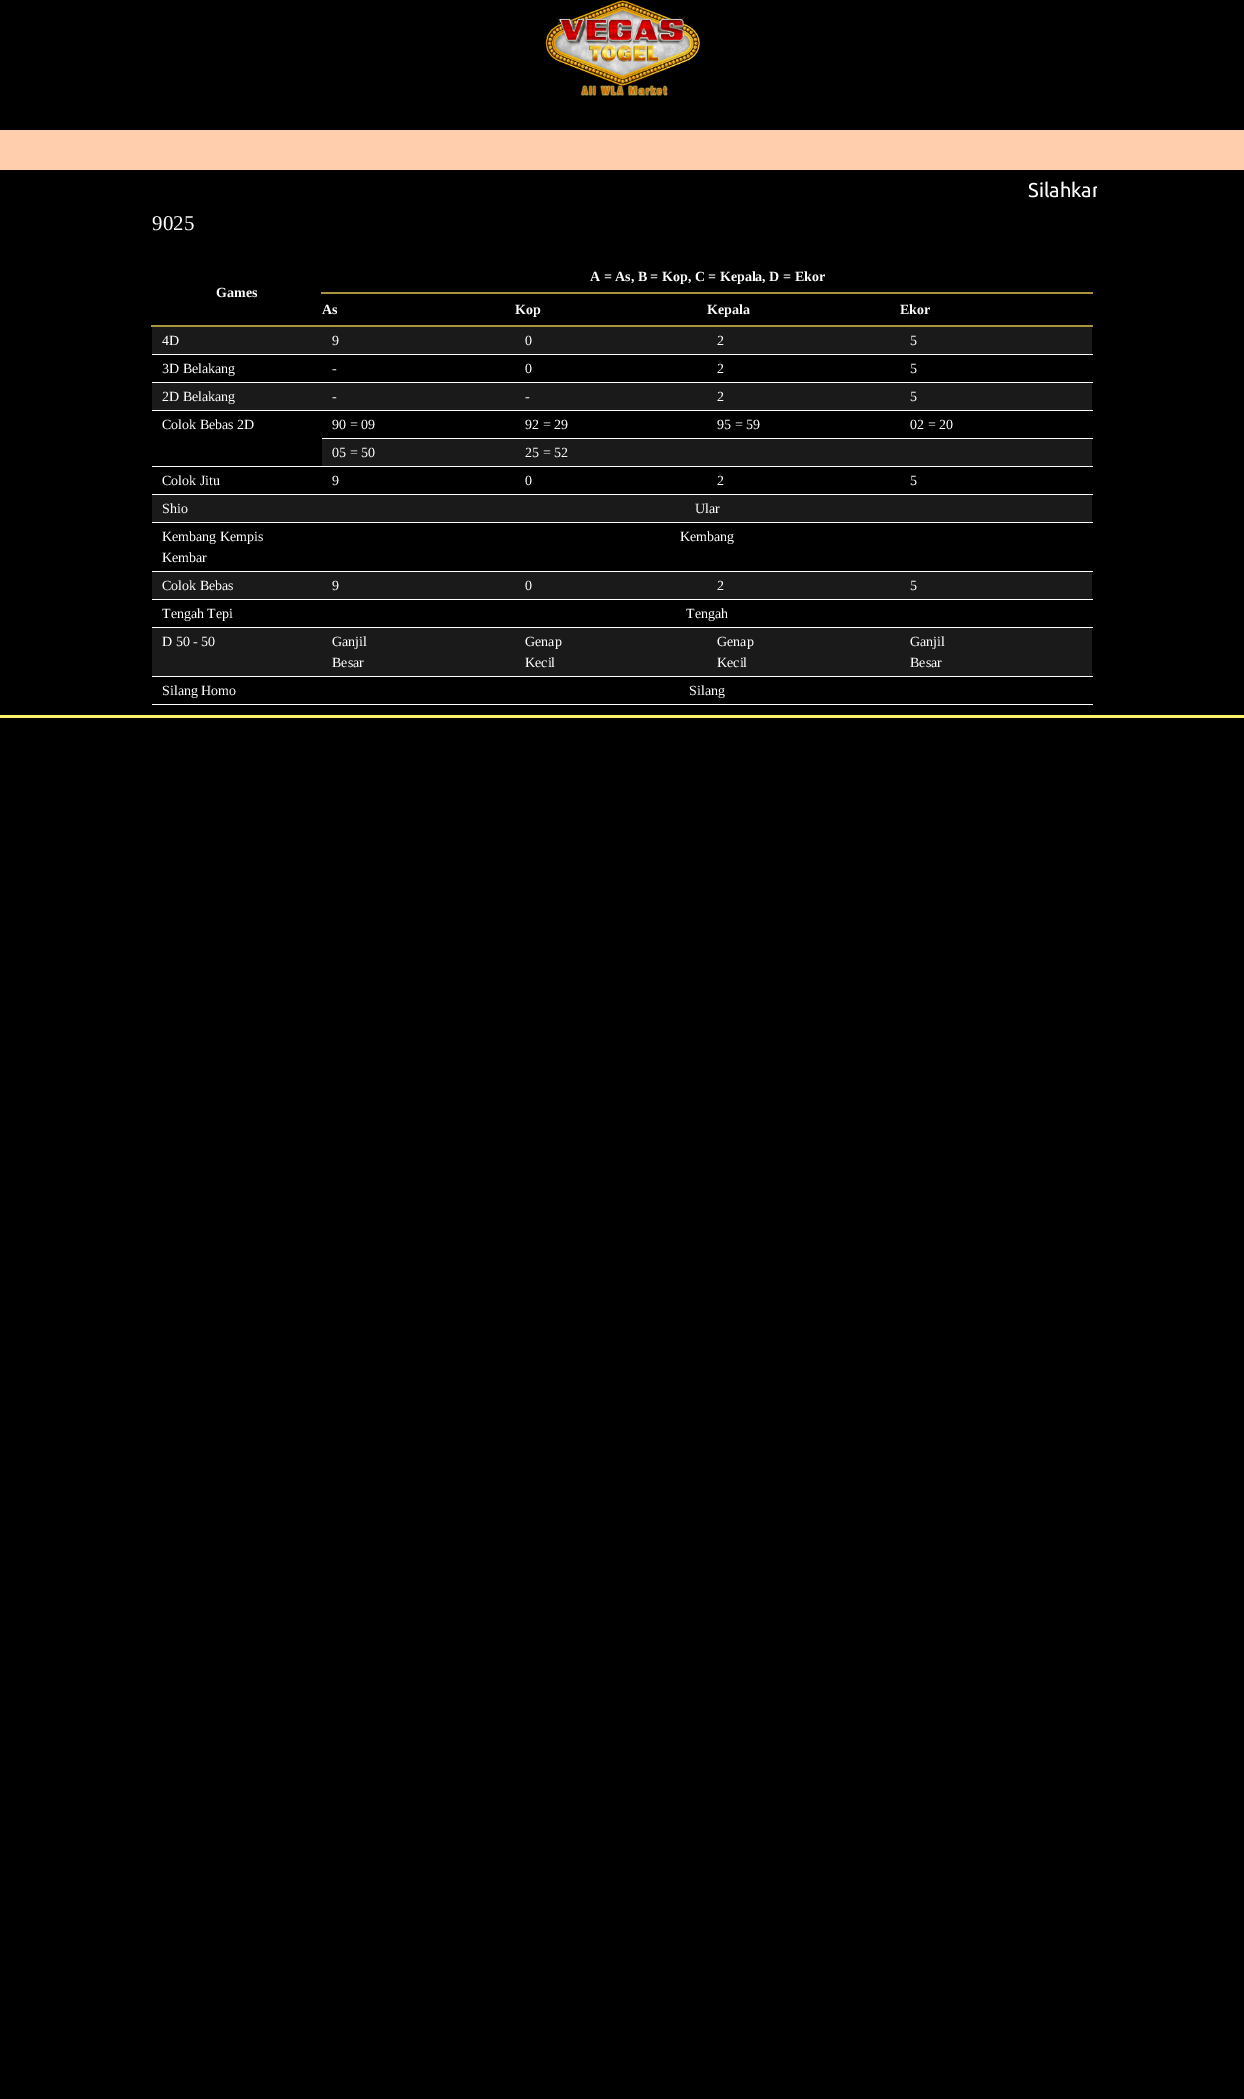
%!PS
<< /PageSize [1244 2099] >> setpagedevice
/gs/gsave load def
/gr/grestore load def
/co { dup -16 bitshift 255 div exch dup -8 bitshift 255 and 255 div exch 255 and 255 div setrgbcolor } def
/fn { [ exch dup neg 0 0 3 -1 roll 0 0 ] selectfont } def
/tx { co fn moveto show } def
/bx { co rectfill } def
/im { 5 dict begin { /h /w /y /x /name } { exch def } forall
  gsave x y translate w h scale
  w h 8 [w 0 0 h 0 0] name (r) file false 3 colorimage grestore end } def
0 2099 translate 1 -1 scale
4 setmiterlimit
0 0 1244 2099 16#000000 bx
(media/1.raw) 545 0 156 96 im
0 130 1244 40 16#FFCFAD bx
321 292 772 2 16#A8943D bx
151 325 942 2 16#A8943D bx
152 327 940 27 16#1A1A1A bx
152 354 941 1 16#FFFFFF bx
152 382 941 1 16#FFFFFF bx
152 383 940 27 16#1A1A1A bx
152 410 941 1 16#FFFFFF bx
322 438 771 1 16#FFFFFF bx
322 439 770 27 16#1A1A1A bx
152 466 941 1 16#FFFFFF bx
152 494 941 1 16#FFFFFF bx
152 495 940 27 16#1A1A1A bx
152 522 941 1 16#FFFFFF bx
152 571 941 1 16#FFFFFF bx
152 572 940 27 16#1A1A1A bx
152 599 941 1 16#FFFFFF bx
152 627 941 1 16#FFFFFF bx
152 628 940 48 16#1A1A1A bx
152 676 941 1 16#FFFFFF bx
152 704 941 1 16#FFFFFF bx
0 715 1244 3 16#FFF169 bx
gs
147 180 950 20 rectclip
(Silahkan) 1028 197 /Ubuntu-Regular 20 16#FFFFFF tx
gr
(9025) 152 230 /LiberationSerif-Regular 21 16#FFFFFF tx
(A = As, B = Kop, C = Kepala, D = Ekor) 590 281 /LiberationSerif-Bold 14 16#FFFFFF tx
(Games) 216 297 /LiberationSerif-Bold 14 16#FFFFFF tx
(As) 322 314 /LiberationSerif-Bold 14 16#FFFFFF tx
(Kop) 515 314 /LiberationSerif-Bold 14 16#FFFFFF tx
(Kepala) 707 314 /LiberationSerif-Bold 14 16#FFFFFF tx
(Ekor) 900 314 /LiberationSerif-Bold 14 16#FFFFFF tx
(4D) 162 345 /LiberationSerif-Regular 14 16#FFFFFF tx
(9) 332 345 /LiberationSerif-Regular 14 16#FFFFFF tx
(0) 525 345 /LiberationSerif-Regular 14 16#FFFFFF tx
(2) 717 345 /LiberationSerif-Regular 14 16#FFFFFF tx
(5) 910 345 /LiberationSerif-Regular 14 16#FFFFFF tx
(3D Belakang) 162 373 /LiberationSerif-Regular 14 16#FFFFFF tx
(-) 332 373 /LiberationSerif-Regular 14 16#FFFFFF tx
(0) 525 373 /LiberationSerif-Regular 14 16#FFFFFF tx
(2) 717 373 /LiberationSerif-Regular 14 16#FFFFFF tx
(5) 910 373 /LiberationSerif-Regular 14 16#FFFFFF tx
(2D Belakang) 162 401 /LiberationSerif-Regular 14 16#FFFFFF tx
(-) 332 401 /LiberationSerif-Regular 14 16#FFFFFF tx
(-) 525 401 /LiberationSerif-Regular 14 16#FFFFFF tx
(2) 717 401 /LiberationSerif-Regular 14 16#FFFFFF tx
(5) 910 401 /LiberationSerif-Regular 14 16#FFFFFF tx
(Colok Bebas 2D) 162 429 /LiberationSerif-Regular 14 16#FFFFFF tx
(90 = 09) 332 429 /LiberationSerif-Regular 14 16#FFFFFF tx
(92 = 29) 525 429 /LiberationSerif-Regular 14 16#FFFFFF tx
(95 = 59) 717 429 /LiberationSerif-Regular 14 16#FFFFFF tx
(02 = 20) 910 429 /LiberationSerif-Regular 14 16#FFFFFF tx
(05 = 50) 332 457 /LiberationSerif-Regular 14 16#FFFFFF tx
(25 = 52) 525 457 /LiberationSerif-Regular 14 16#FFFFFF tx
(Colok Jitu) 162 485 /LiberationSerif-Regular 14 16#FFFFFF tx
(9) 332 485 /LiberationSerif-Regular 14 16#FFFFFF tx
(0) 525 485 /LiberationSerif-Regular 14 16#FFFFFF tx
(2) 717 485 /LiberationSerif-Regular 14 16#FFFFFF tx
(5) 910 485 /LiberationSerif-Regular 14 16#FFFFFF tx
(Shio) 162 513 /LiberationSerif-Regular 14 16#FFFFFF tx
(Ular) 695 513 /LiberationSerif-Regular 14 16#FFFFFF tx
(Kembang Kempis) 162 541 /LiberationSerif-Regular 14 16#FFFFFF tx
(Kembar) 162 562 /LiberationSerif-Regular 14 16#FFFFFF tx
(Kembang) 680 541 /LiberationSerif-Regular 14 16#FFFFFF tx
(Colok Bebas) 162 590 /LiberationSerif-Regular 14 16#FFFFFF tx
(9) 332 590 /LiberationSerif-Regular 14 16#FFFFFF tx
(0) 525 590 /LiberationSerif-Regular 14 16#FFFFFF tx
(2) 717 590 /LiberationSerif-Regular 14 16#FFFFFF tx
(5) 910 590 /LiberationSerif-Regular 14 16#FFFFFF tx
(Tengah Tepi) 162 618 /LiberationSerif-Regular 14 16#FFFFFF tx
(Tengah) 686 618 /LiberationSerif-Regular 14 16#FFFFFF tx
(D 50 - 50) 162 646 /LiberationSerif-Regular 14 16#FFFFFF tx
(Ganjil) 332 646 /LiberationSerif-Regular 14 16#FFFFFF tx
(Besar) 332 667 /LiberationSerif-Regular 14 16#FFFFFF tx
(Genap) 525 646 /LiberationSerif-Regular 14 16#FFFFFF tx
(Kecil) 525 667 /LiberationSerif-Regular 14 16#FFFFFF tx
(Genap) 717 646 /LiberationSerif-Regular 14 16#FFFFFF tx
(Kecil) 717 667 /LiberationSerif-Regular 14 16#FFFFFF tx
(Ganjil) 910 646 /LiberationSerif-Regular 14 16#FFFFFF tx
(Besar) 910 667 /LiberationSerif-Regular 14 16#FFFFFF tx
(Silang Homo) 162 695 /LiberationSerif-Regular 14 16#FFFFFF tx
(Silang) 689 695 /LiberationSerif-Regular 14 16#FFFFFF tx
showpage
